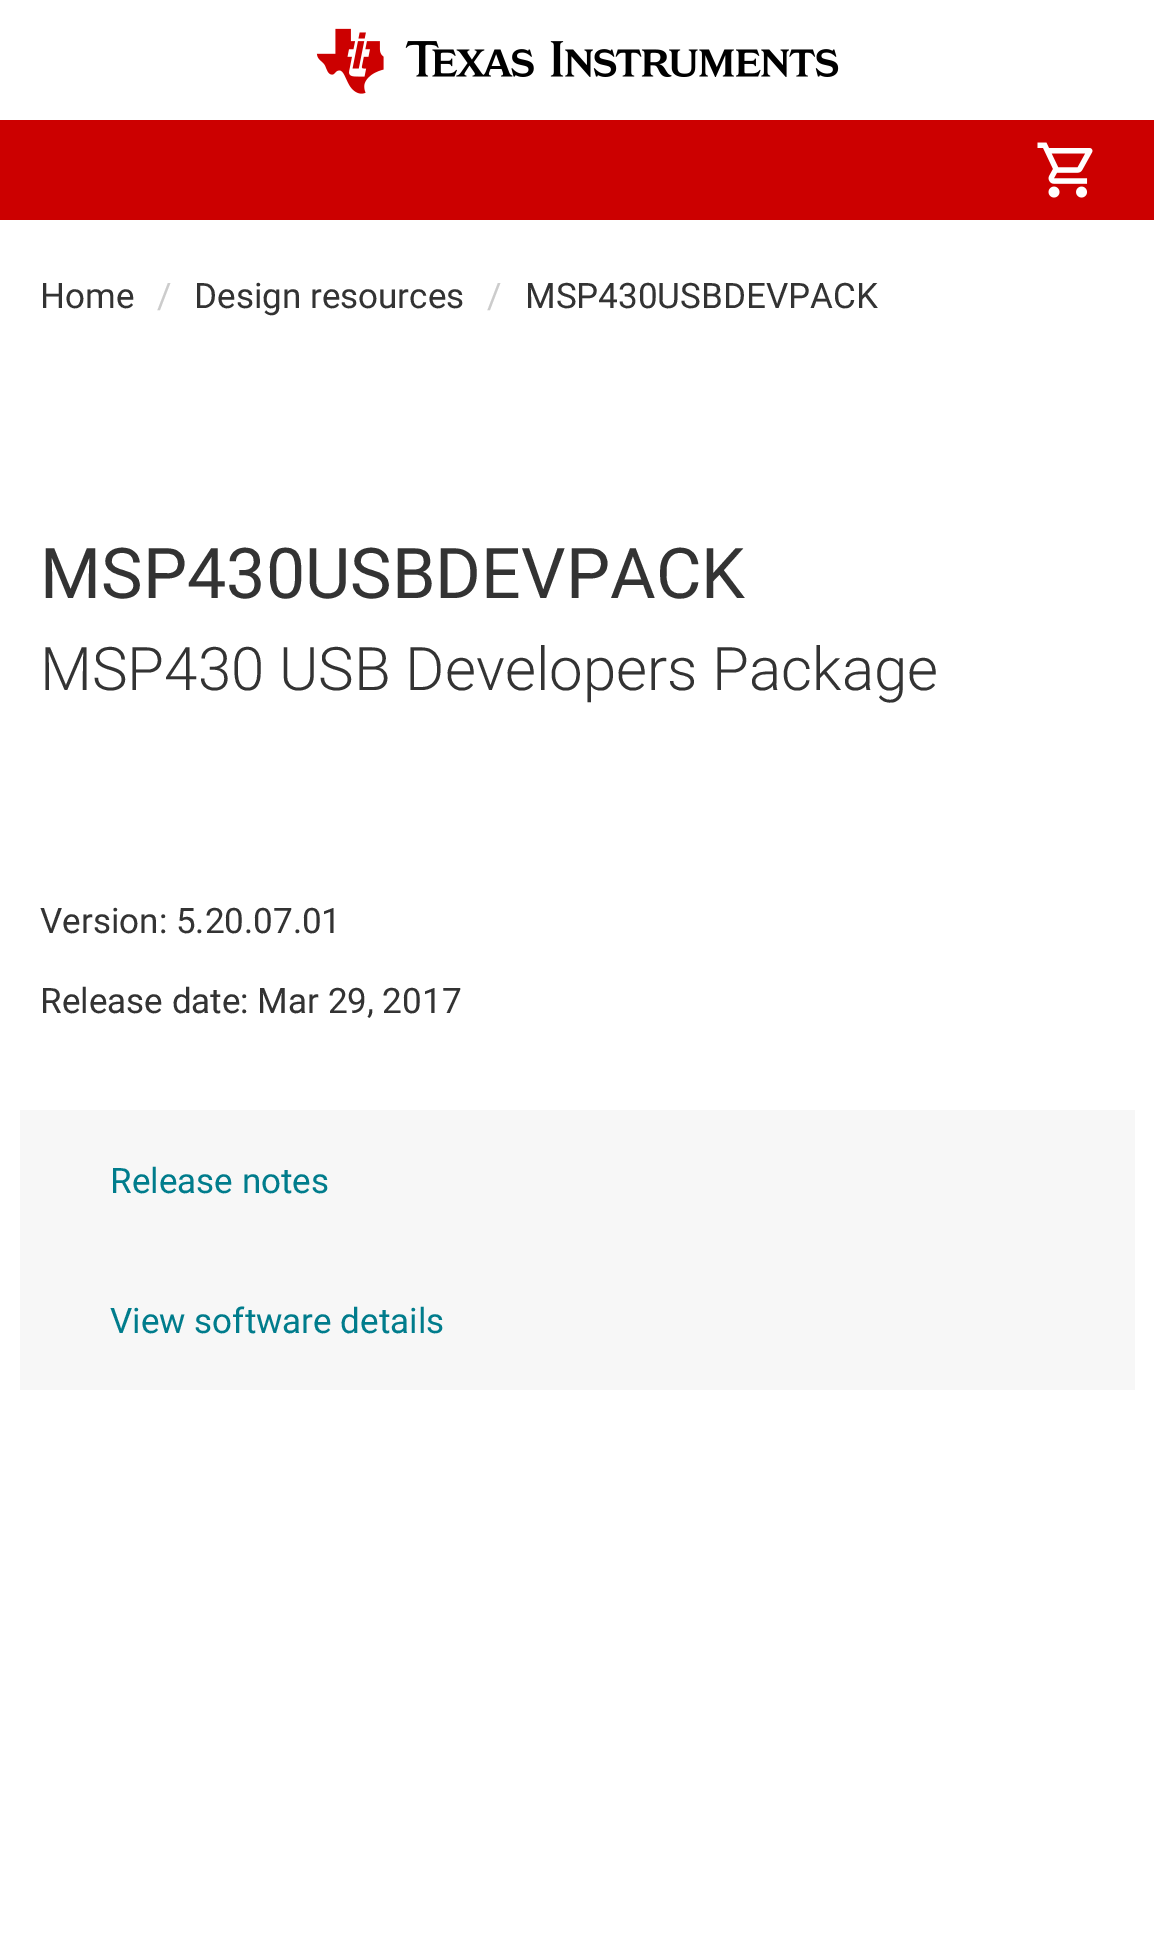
%!PS
<< /PageSize [1154 1957] >> setpagedevice
/co { dup -16 bitshift 255 div exch dup -8 bitshift 255 and 255 div exch 255 and 255 div setrgbcolor } def
/fn { [ exch dup neg 0 0 3 -1 roll 0 0 ] selectfont } def
/tx { co fn moveto show } def
/bx { co rectfill } def
/im { 5 dict begin { /h /w /y /x /name } { exch def } forall
  gsave x y translate w h scale
  w h 8 [w 0 0 h 0 0] name (r) file false 3 colorimage grestore end } def
0 1957 translate 1 -1 scale
4 setmiterlimit
0 0 1154 1957 16#FFFFFF bx
(media/1.raw) 316 28 523 66 im
0 120 1154 100 16#CC0000 bx
(media/2.raw) 1037 142 56 56 im
20 1110 1115 280 16#F7F7F7 bx
(Home) 40 308 /Roboto-Regular 35 16#333333 tx
(/) 157 308 /Roboto-Regular 35 16#CCCCCC tx
(Design resources) 194 308 /Roboto-Regular 35 16#333333 tx
(/) 487 308 /Roboto-Regular 35 16#CCCCCC tx
(MSP430USBDEVPACK) 525 308 /Roboto-Regular 35 16#333333 tx
(MSP430USBDEVPACK) 40 598 /Roboto-Regular 70 16#333333 tx
(MSP430 USB Developers Package) 40 690 /Roboto-Light 60 16#333333 tx
(Version: 5.20.07.01) 40 933 /Roboto-Regular 35 16#333333 tx
(Release date: Mar 29, 2017) 40 1013 /Roboto-Regular 35 16#333333 tx
(Release notes) 110 1193 /Roboto-Regular 35 16#007C8C tx
(View software details) 110 1333 /Roboto-Regular 35 16#007C8C tx
showpage
